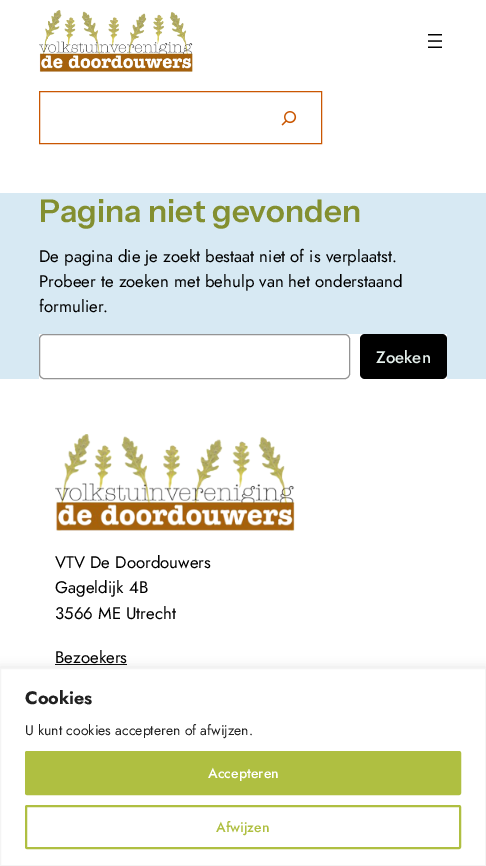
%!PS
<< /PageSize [486 866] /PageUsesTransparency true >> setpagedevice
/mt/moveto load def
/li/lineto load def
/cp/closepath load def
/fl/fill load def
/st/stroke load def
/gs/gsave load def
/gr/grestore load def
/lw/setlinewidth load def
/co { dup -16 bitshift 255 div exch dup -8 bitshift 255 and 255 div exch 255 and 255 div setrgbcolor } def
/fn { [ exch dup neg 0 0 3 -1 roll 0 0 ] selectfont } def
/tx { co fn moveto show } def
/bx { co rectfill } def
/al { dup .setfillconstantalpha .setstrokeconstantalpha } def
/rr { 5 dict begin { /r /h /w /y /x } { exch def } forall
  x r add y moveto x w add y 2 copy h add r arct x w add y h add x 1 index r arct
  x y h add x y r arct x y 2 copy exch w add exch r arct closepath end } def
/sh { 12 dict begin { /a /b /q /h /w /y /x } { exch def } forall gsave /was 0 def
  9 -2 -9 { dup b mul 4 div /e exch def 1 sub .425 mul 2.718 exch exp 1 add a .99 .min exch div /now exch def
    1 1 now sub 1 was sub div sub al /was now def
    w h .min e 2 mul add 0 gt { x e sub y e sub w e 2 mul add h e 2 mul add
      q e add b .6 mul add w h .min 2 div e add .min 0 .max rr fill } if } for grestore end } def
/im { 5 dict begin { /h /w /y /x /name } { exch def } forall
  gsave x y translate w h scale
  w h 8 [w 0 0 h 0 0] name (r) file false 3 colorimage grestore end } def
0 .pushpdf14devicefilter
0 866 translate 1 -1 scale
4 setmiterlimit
0 0 486 866 16#FFFFFF bx
(media/1.raw) 39 10 154 62 im
(media/2.raw) 428 34 14 14 im
16#CA5702 co
39.5 91.5 282 52 rectstroke
(media/3.raw) 281 111 16 15 im
0 193 486 186 16#D7E9F3 bx
39 334 408 45 16#FFFFFF bx
16#949494 co
39.5 334.5 310 44 4.5 rr st
16#000000 co
360 334 87 45 5 rr fl
(media/4.raw) 55 434 240 97 im
55 664 72 1 16#000000 bx
16#ACABAB co
0 667 486 198 0 5 .3 sh
16#FFFFFF co
.5 668.5 mt 485.5 668.5 li 485.5 865.5 li .5 865.5 li cp gs fl gr
16#F4F4F4 co
st
16#AFBF41 co
26 752 434 42 1 rr gs fl gr
2 lw
st
26 806 434 42 1 rr st
(Pagina niet gevonden) 39 222 /InstrumentSans-SemiBold 31.4 16#838F30 tx
(De pagina die je zoekt bestaat niet of is verplaatst.) 39 262 /Jost-Regular 16.8 16#000000 tx
(Probeer te zoeken met behulp van het onderstaand) 39 287 /Jost-Regular 16.8 16#000000 tx
(formulier.) 39 312 /Jost-Regular 16.8 16#000000 tx
(Zoeken) 376 363 /Jost-Medium 16.8 16#E4EFEB tx
(VTV De Doordouwers) 55 568 /Jost-Regular 16.8 16#000000 tx
(Gageldijk 4B) 55 593 /Jost-Regular 16.8 16#000000 tx
(3566 ME Utrecht) 55 619 /Jost-Regular 16.8 16#000000 tx
(Bezoekers) 55 663 /Jost-Regular 16.8 16#000000 tx
(Cookies) 25 704 /Jost-Bold 18 16#212121 tx
(U kunt cookies accepteren of afwijzen.) 25 735 /Jost-Regular 14 16#212121 tx
(Accepteren) 208 778 /Jost-Medium 14 16#FFFFFF tx
(Afwijzen) 216 832 /Jost-Medium 14 16#AFBF41 tx
.poppdf14devicefilter showpage
